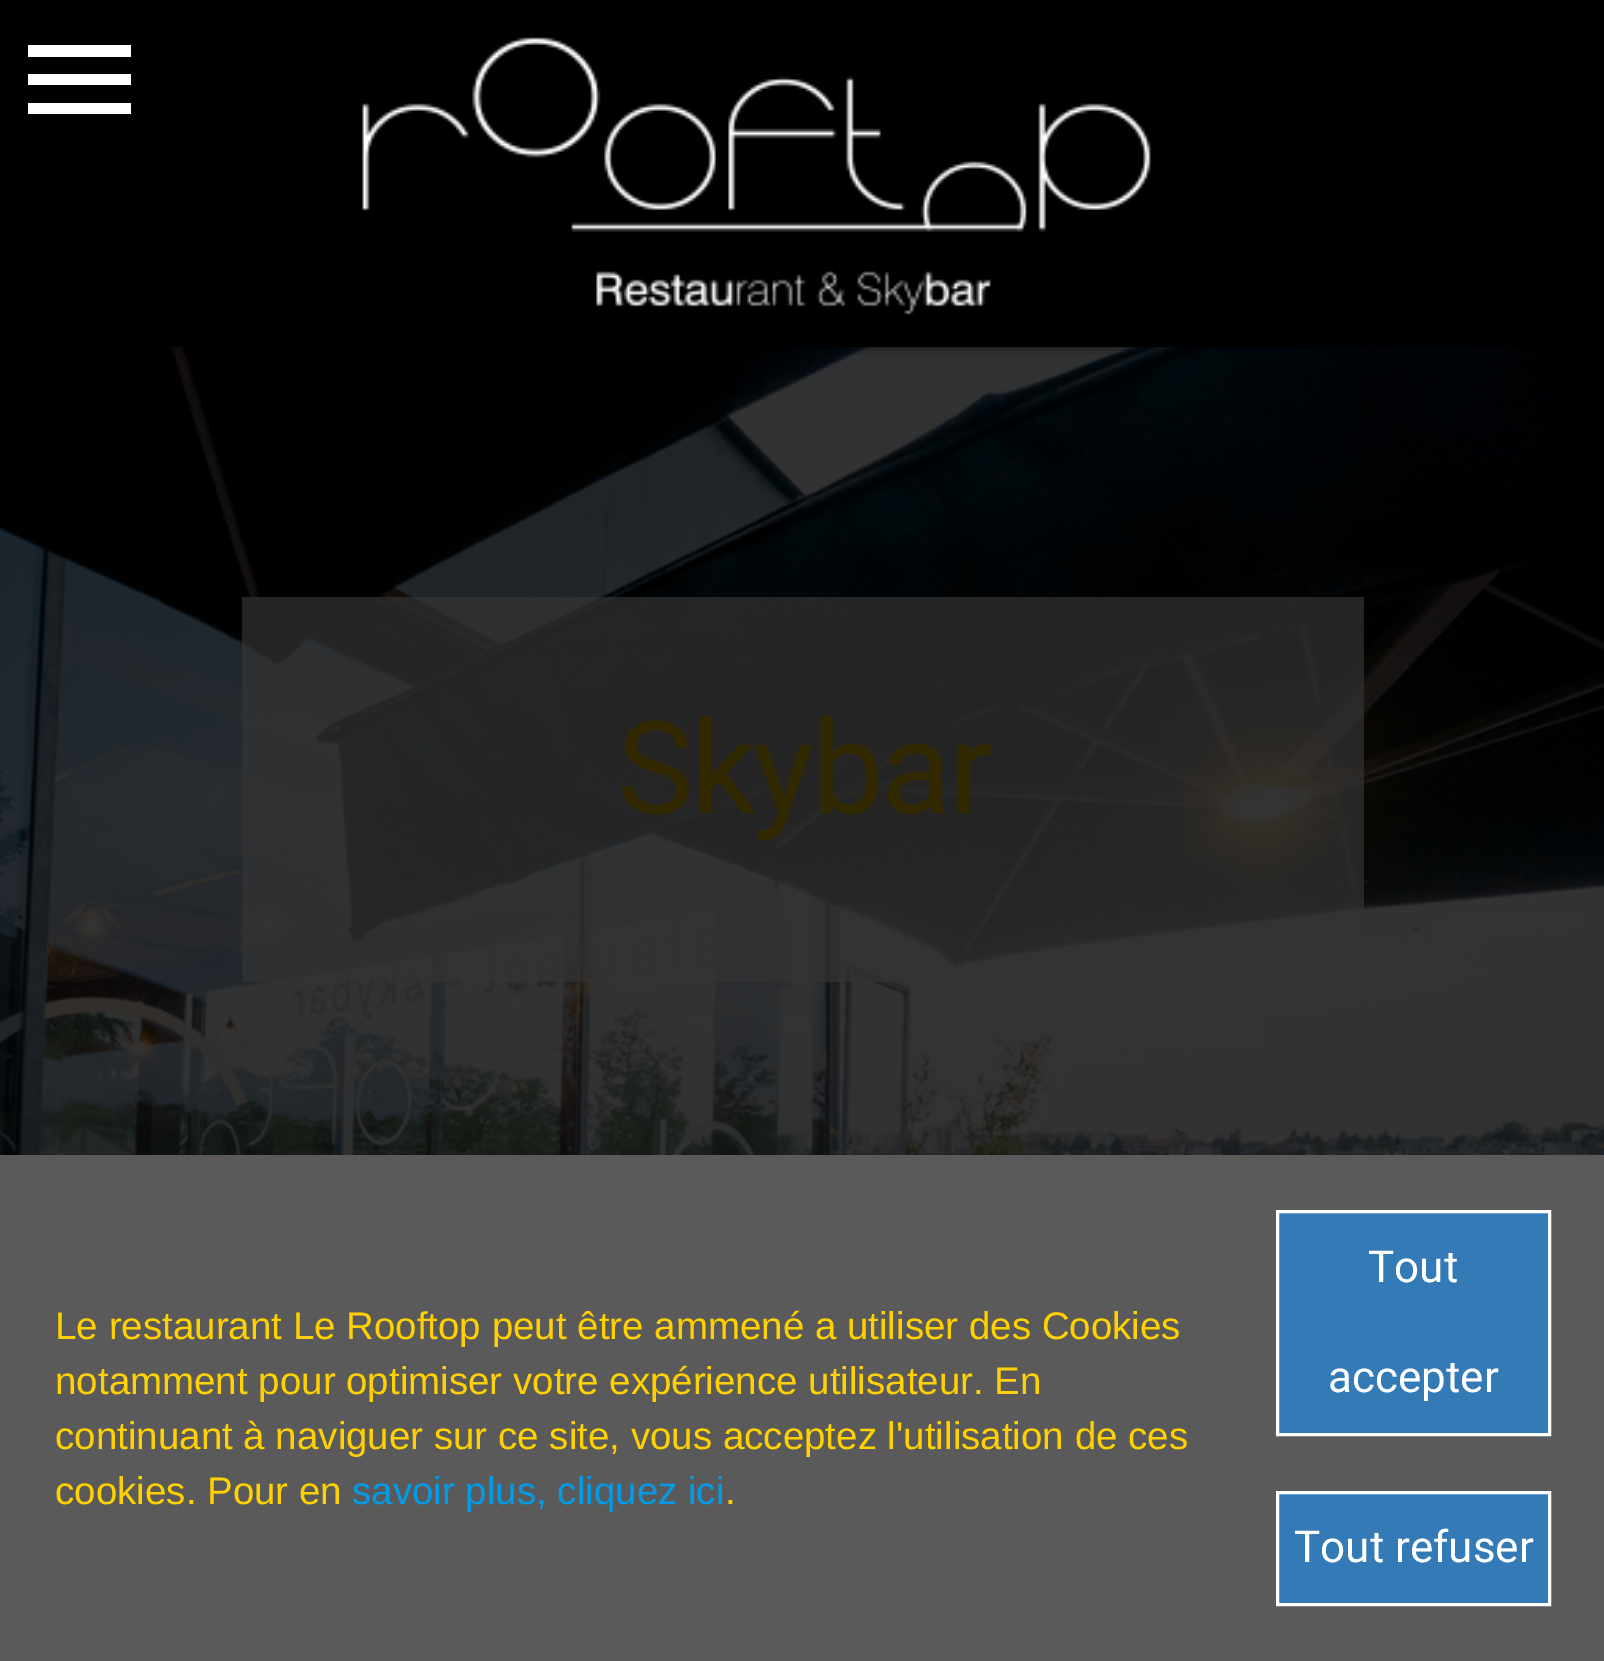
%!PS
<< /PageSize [1604 1661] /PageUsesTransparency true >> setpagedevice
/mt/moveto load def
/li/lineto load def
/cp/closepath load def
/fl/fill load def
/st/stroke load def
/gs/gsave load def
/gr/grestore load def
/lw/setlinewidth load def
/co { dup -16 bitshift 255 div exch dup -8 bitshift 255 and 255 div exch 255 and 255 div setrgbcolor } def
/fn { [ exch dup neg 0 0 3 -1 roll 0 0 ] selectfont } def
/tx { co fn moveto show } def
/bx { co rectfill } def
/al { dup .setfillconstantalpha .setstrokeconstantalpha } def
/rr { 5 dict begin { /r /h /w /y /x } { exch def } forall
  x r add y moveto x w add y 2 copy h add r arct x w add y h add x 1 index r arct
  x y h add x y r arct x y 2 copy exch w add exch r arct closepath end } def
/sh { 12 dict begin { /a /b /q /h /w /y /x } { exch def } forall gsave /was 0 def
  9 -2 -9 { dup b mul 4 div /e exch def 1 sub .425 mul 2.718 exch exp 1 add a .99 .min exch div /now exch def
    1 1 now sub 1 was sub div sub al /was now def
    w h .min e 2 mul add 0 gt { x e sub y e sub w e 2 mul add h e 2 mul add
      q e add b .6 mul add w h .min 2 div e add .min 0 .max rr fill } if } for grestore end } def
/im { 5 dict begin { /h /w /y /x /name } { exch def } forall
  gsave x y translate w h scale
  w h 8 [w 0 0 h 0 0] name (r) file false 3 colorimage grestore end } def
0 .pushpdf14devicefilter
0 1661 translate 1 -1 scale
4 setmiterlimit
0 0 1604 1661 16#FFFFFF bx
(media/2.raw) 0 347 1604 808 im
16#000000 co
0 3 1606 346 0 7 .12 sh
6 14 1595 335 0 1.5 .2 sh
0 6 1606 346 0 3 .14 sh
0 0 1604 347 16#000000 bx
16#FFFFFF co
28 45 mt 131 45 li 131 57 li 28 57 li cp 28 85 mt 28 74 li 131 74 li 131 85 li cp 28 114 mt 28 103 li 131 103 li 131 114 li cp fl
(media/1.raw) 362 37 789 278 im
0.7 al
242 597 1122 385 16#333333 bx
1 al
0 1155 1604 506 16#5A5A5A bx
16#337AB7 co
1277.5 1211.5 mt 1549.5 1211.5 li 1549.5 1434.5 li 1277.5 1434.5 li cp gs fl gr
16#FFFFFF co
3 lw
st
16#337AB7 co
1277.5 1492.5 mt 1549.5 1492.5 li 1549.5 1604.5 li 1277.5 1604.5 li cp gs fl gr
16#FFFFFF co
st
/Roboto-Regular 128.5 fn
16#332900 co
617 813 mt -2.5 0 (Skybar) ashow
(Le restaurant Le Rooftop peut être ammené a utiliser des Cookies) 55 1339 /LiberationSans-Regular 38.5 16#FFD100 tx
(notamment pour optimiser votre expérience utilisateur. En) 55 1394 /LiberationSans-Regular 38.5 16#FFD100 tx
(continuant à naviguer sur ce site, vous acceptez l'utilisation de ces) 55 1449 /LiberationSans-Regular 38.5 16#FFD100 tx
(cookies. Pour en) 55 1504 /LiberationSans-Regular 38.5 16#FFD100 tx
(savoir plus, cliquez ici) 352 1504 /LiberationSans-Regular 38.5 16#039BE5 tx
(.) 725 1504 /LiberationSans-Regular 38.5 16#FFD100 tx
(Tout) 1368 1282 /Roboto-Regular 44 16#FFFFFF tx
(accepter) 1328 1392 /Roboto-Regular 44 16#FFFFFF tx
(Tout refuser) 1294 1562 /Roboto-Regular 44 16#FFFFFF tx
.poppdf14devicefilter showpage
